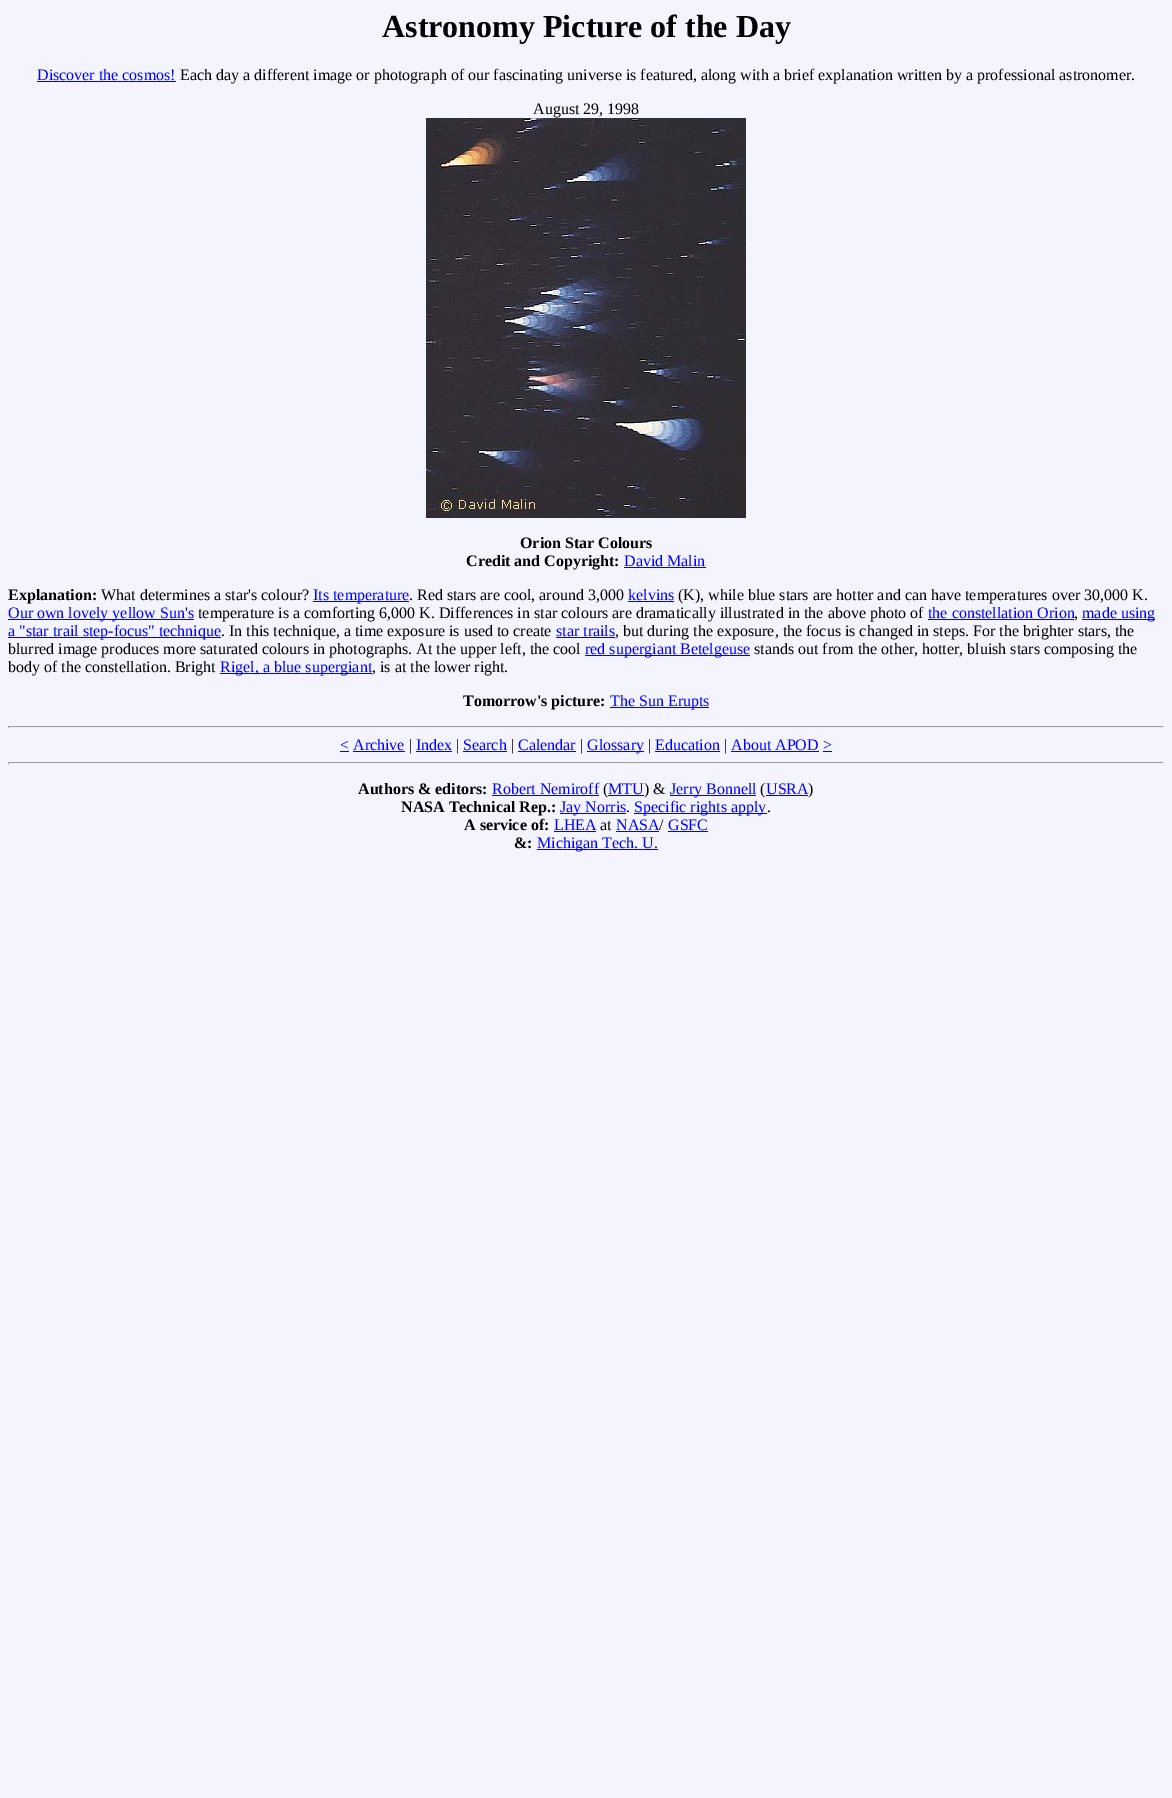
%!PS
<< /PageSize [1172 1798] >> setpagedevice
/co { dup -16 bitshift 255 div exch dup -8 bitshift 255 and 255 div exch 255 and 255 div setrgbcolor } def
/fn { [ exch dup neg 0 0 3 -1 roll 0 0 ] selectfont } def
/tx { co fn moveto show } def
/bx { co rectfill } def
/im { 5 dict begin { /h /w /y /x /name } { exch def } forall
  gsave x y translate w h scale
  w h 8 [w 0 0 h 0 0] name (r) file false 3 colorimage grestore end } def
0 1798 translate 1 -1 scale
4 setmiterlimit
0 0 1172 1798 16#F4F4FF bx
37 81 139 1 16#0000FF bx
(media/1.raw) 426 118 320 400 im
624 567 82 1 16#0000FF bx
313 601 96 1 16#0000FF bx
628 601 46 1 16#0000FF bx
8 619 186 1 16#0000FF bx
928 619 146 1 16#0000FF bx
1082 619 73 1 16#0000FF bx
8 637 213 1 16#0000FF bx
556 637 59 1 16#0000FF bx
585 655 165 1 16#0000FF bx
220 673 152 1 16#0000FF bx
610 707 99 1 16#0000FF bx
8 726 1156 1 16#9F9F9F bx
1163 726 1 2 16#EEEEEE bx
8 727 1156 1 16#EEEEEE bx
8 726 1 2 16#9F9F9F bx
340 751 9 1 16#0000FF bx
416 751 36 1 16#0000FF bx
463 751 44 1 16#0000FF bx
518 751 58 1 16#0000FF bx
587 751 57 1 16#0000FF bx
655 751 65 1 16#0000FF bx
731 751 88 1 16#0000FF bx
353 751 52 1 16#0000FF bx
823 751 9 1 16#0000FF bx
8 762 1156 1 16#9F9F9F bx
1163 762 1 2 16#EEEEEE bx
8 763 1156 1 16#EEEEEE bx
8 762 1 2 16#9F9F9F bx
492 795 107 1 16#0000FF bx
608 795 36 1 16#0000FF bx
670 795 86 1 16#0000FF bx
766 795 42 1 16#0000FF bx
560 813 66 1 16#0000FF bx
634 813 133 1 16#0000FF bx
554 831 42 1 16#0000FF bx
616 831 43 1 16#0000FF bx
668 831 40 1 16#0000FF bx
537 849 121 1 16#0000FF bx
(Astronomy Picture of the Day) 382 37 /LiberationSerif-Bold 32 16#000000 tx
(Discover the cosmos!) 37 80 /LiberationSerif-Regular 16 16#0000FF tx
(Each day a different image or photograph of our fascinating universe is featured, along with a brief explanation written by a professional astronomer.) 180 80 /LiberationSerif-Regular 16 16#000000 tx
(August 29, 1998) 533 114 /LiberationSerif-Regular 16 16#000000 tx
(Orion Star Colours) 520 548 /LiberationSerif-Bold 16 16#000000 tx
(Credit and Copyright:) 466 566 /LiberationSerif-Bold 16 16#000000 tx
(David Malin) 624 566 /LiberationSerif-Regular 16 16#0000FF tx
(Explanation:) 8 600 /LiberationSerif-Bold 16 16#000000 tx
(What determines a star's colour?) 101 600 /LiberationSerif-Regular 16 16#000000 tx
(Its temperature) 313 600 /LiberationSerif-Regular 16 16#0000FF tx
(. Red stars are cool, around 3,000) 409 600 /LiberationSerif-Regular 16 16#000000 tx
(kelvins) 628 600 /LiberationSerif-Regular 16 16#0000FF tx
(\(K\), while blue stars are hotter and can have temperatures over 30,000 K.) 678 600 /LiberationSerif-Regular 16 16#000000 tx
(Our own lovely yellow Sun's) 8 618 /LiberationSerif-Regular 16 16#0000FF tx
(temperature is a comforting 6,000 K. Differences in star colours are dramatically illustrated in the above photo of) 198 618 /LiberationSerif-Regular 16 16#000000 tx
(the constellation Orion) 928 618 /LiberationSerif-Regular 16 16#0000FF tx
(,) 1074 618 /LiberationSerif-Regular 16 16#000000 tx
(made using) 1082 618 /LiberationSerif-Regular 16 16#0000FF tx
(a "star trail step-focus" technique) 8 636 /LiberationSerif-Regular 16 16#0000FF tx
(. In this technique, a time exposure is used to create) 221 636 /LiberationSerif-Regular 16 16#000000 tx
(star trails) 556 636 /LiberationSerif-Regular 16 16#0000FF tx
(, but during the exposure, the focus is changed in steps. For the brighter stars, the) 615 636 /LiberationSerif-Regular 16 16#000000 tx
(blurred image produces more saturated colours in photographs. At the upper left, the cool) 8 654 /LiberationSerif-Regular 16 16#000000 tx
(red supergiant Betelgeuse) 585 654 /LiberationSerif-Regular 16 16#0000FF tx
(stands out from the other, hotter, bluish stars composing the) 754 654 /LiberationSerif-Regular 16 16#000000 tx
(body of the constellation. Bright) 8 672 /LiberationSerif-Regular 16 16#000000 tx
(Rigel, a blue supergiant) 220 672 /LiberationSerif-Regular 16 16#0000FF tx
(, is at the lower right.) 372 672 /LiberationSerif-Regular 16 16#000000 tx
(Tomorrow's picture:) 463 706 /LiberationSerif-Bold 16 16#000000 tx
(The Sun Erupts) 610 706 /LiberationSerif-Regular 16 16#0000FF tx
(< Archive) 340 750 /LiberationSerif-Regular 16 16#0000FF tx
(|) 409 750 /LiberationSerif-Regular 16 16#000000 tx
(Index) 416 750 /LiberationSerif-Regular 16 16#0000FF tx
(|) 456 750 /LiberationSerif-Regular 16 16#000000 tx
(Search) 463 750 /LiberationSerif-Regular 16 16#0000FF tx
(|) 511 750 /LiberationSerif-Regular 16 16#000000 tx
(Calendar) 518 750 /LiberationSerif-Regular 16 16#0000FF tx
(|) 580 750 /LiberationSerif-Regular 16 16#000000 tx
(Glossary) 587 750 /LiberationSerif-Regular 16 16#0000FF tx
(|) 648 750 /LiberationSerif-Regular 16 16#000000 tx
(Education) 655 750 /LiberationSerif-Regular 16 16#0000FF tx
(|) 724 750 /LiberationSerif-Regular 16 16#000000 tx
(About APOD >) 731 750 /LiberationSerif-Regular 16 16#0000FF tx
(Authors & editors:) 358 794 /LiberationSerif-Bold 16 16#000000 tx
(Robert Nemiroff) 492 794 /LiberationSerif-Regular 16 16#0000FF tx
(\() 603 794 /LiberationSerif-Regular 16 16#000000 tx
(MTU) 608 794 /LiberationSerif-Regular 16 16#0000FF tx
(\) &) 644 794 /LiberationSerif-Regular 16 16#000000 tx
(Jerry Bonnell) 670 794 /LiberationSerif-Regular 16 16#0000FF tx
(\() 760 794 /LiberationSerif-Regular 16 16#000000 tx
(USRA) 766 794 /LiberationSerif-Regular 16 16#0000FF tx
(\)) 808 794 /LiberationSerif-Regular 16 16#000000 tx
(NASA Technical Rep.:) 401 812 /LiberationSerif-Bold 16 16#000000 tx
(Jay Norris) 560 812 /LiberationSerif-Regular 16 16#0000FF tx
(.) 626 812 /LiberationSerif-Regular 16 16#000000 tx
(Specific rights apply) 634 812 /LiberationSerif-Regular 16 16#0000FF tx
(.) 767 812 /LiberationSerif-Regular 16 16#000000 tx
(A service of:) 464 830 /LiberationSerif-Bold 16 16#000000 tx
(LHEA) 554 830 /LiberationSerif-Regular 16 16#0000FF tx
(at) 600 830 /LiberationSerif-Regular 16 16#000000 tx
(NASA) 616 830 /LiberationSerif-Regular 16 16#0000FF tx
(/) 659 830 /LiberationSerif-Regular 16 16#000000 tx
(GSFC) 668 830 /LiberationSerif-Regular 16 16#0000FF tx
(&:) 514 848 /LiberationSerif-Bold 16 16#000000 tx
(Michigan Tech. U.) 537 848 /LiberationSerif-Regular 16 16#0000FF tx
showpage
